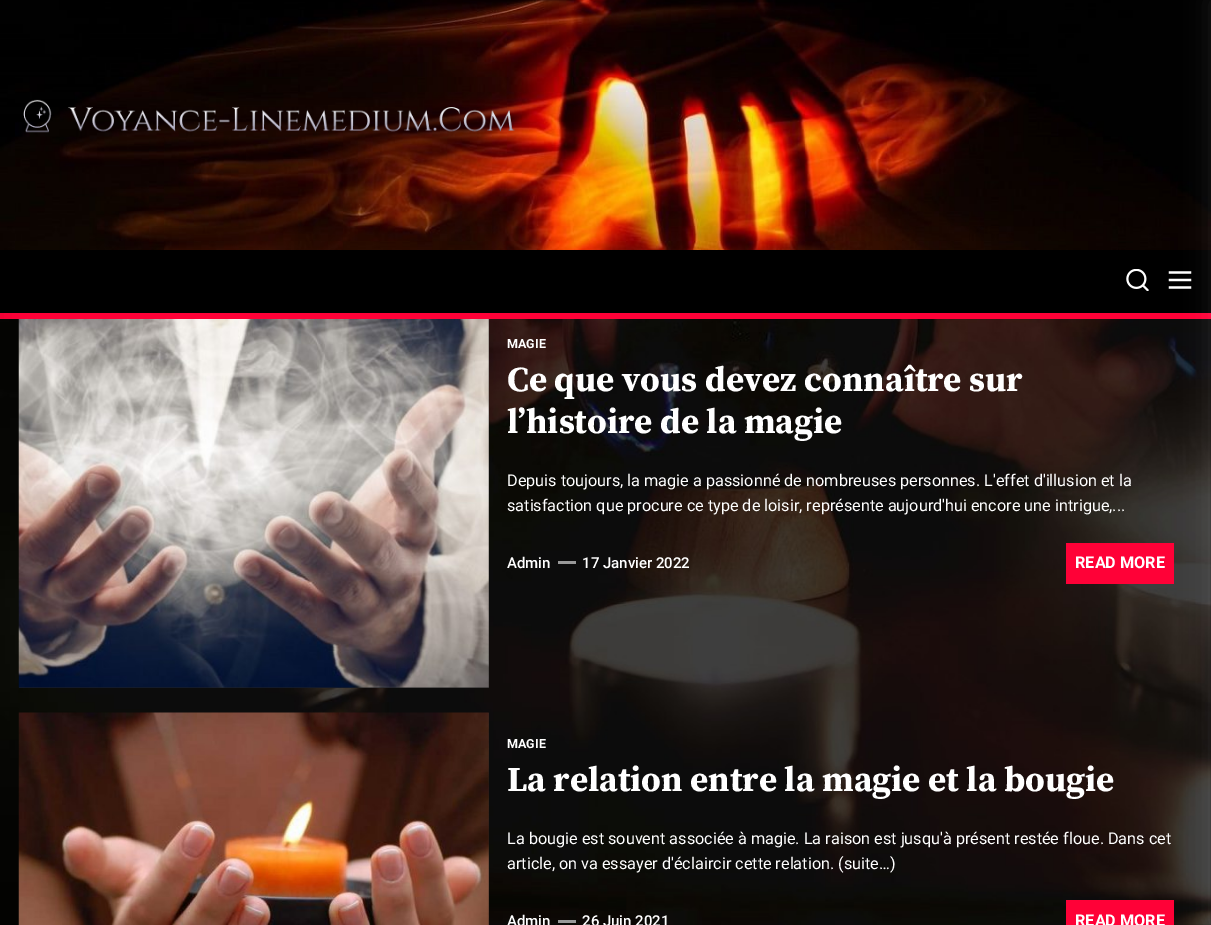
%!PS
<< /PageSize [1211 925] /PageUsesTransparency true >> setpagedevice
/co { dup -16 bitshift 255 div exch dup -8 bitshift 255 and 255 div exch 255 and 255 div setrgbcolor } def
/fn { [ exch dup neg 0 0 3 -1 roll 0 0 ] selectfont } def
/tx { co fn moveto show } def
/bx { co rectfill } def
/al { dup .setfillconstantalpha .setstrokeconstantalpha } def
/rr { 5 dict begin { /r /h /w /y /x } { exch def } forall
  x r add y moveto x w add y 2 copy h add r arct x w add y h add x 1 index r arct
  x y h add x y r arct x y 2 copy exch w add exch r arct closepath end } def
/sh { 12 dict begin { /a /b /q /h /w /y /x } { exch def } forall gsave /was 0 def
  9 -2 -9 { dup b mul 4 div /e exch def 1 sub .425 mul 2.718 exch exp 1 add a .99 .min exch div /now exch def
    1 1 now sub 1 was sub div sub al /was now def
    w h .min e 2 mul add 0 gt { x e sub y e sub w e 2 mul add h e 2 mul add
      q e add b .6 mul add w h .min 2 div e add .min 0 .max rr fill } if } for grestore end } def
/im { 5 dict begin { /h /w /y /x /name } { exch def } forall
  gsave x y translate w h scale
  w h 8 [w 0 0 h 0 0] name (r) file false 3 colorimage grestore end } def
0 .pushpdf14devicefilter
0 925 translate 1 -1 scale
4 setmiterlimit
0 0 1211 925 16#FFFFFF bx
(media/1.raw) 0 319 1211 606 im
(media/2.raw) 0 0 1211 250 im
(media/3.raw) 23 99 492 34 im
0 250 1211 63 16#000000 bx
0 313 1211 6 16#FF0137 bx
19 319 470 369 16#232323 bx
(media/6.raw) 18 319 471 369 im
(media/7.raw) 18 712 471 213 im
16#000000 co
-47 0 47 925 0 15.5 .1 sh
(media/4.raw) 1126 269 23 22 im
(media/5.raw) 1168 271 24 18 im
558 561 18 3 16#999999 bx
1066 543 108 41 16#FF0137 bx
558 920 18 3 16#999999 bx
1066 900 108 25 16#FF0137 bx
16#FFFFFF co
1211 0 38 925 0 12.5 .1 sh
(MAGIE) 507 348 /Roboto-Bold 12.5 16#FFFFFF tx
(Ce que vous devez connaître sur) 507 391 /SourceSerifPro-Bold 35 16#FFFFFF tx
(l’histoire de la magie) 507 433 /SourceSerifPro-Bold 35 16#FFFFFF tx
(Depuis toujours, la magie a passionné de nombreuses personnes. L'effet d'illusion et la) 507 486 /Roboto-Regular 16.25 16#FFFFFF tx
(satisfaction que procure ce type de loisir, représente aujourd'hui encore une intrigue,...) 507 511 /Roboto-Regular 16.25 16#FFFFFF tx
(Admin) 507 568 /Roboto-Medium 15 16#FFFFFF tx
(17 Janvier 2022) 582 568 /Roboto-Medium 15 16#FFFFFF tx
(READ MORE) 1075 568 /Roboto-Bold 16.25 16#FFFFFF tx
(MAGIE) 507 748 /Roboto-Bold 12.5 16#FFFFFF tx
(La relation entre la magie et la bougie) 507 791 /SourceSerifPro-Bold 35 16#FFFFFF tx
(La bougie est souvent associée à magie. La raison est jusqu'à présent restée floue. Dans cet) 507 844 /Roboto-Regular 16.25 16#FFFFFF tx
(article, on va essayer d'éclaircir cette relation. \(suite…\)) 507 869 /Roboto-Regular 16.25 16#FFFFFF tx
(Admin) 507 926 /Roboto-Medium 15 16#FFFFFF tx
(26 Juin 2021) 582 926 /Roboto-Medium 15 16#FFFFFF tx
(READ MORE) 1075 926 /Roboto-Bold 16.25 16#FFFFFF tx
.poppdf14devicefilter showpage
